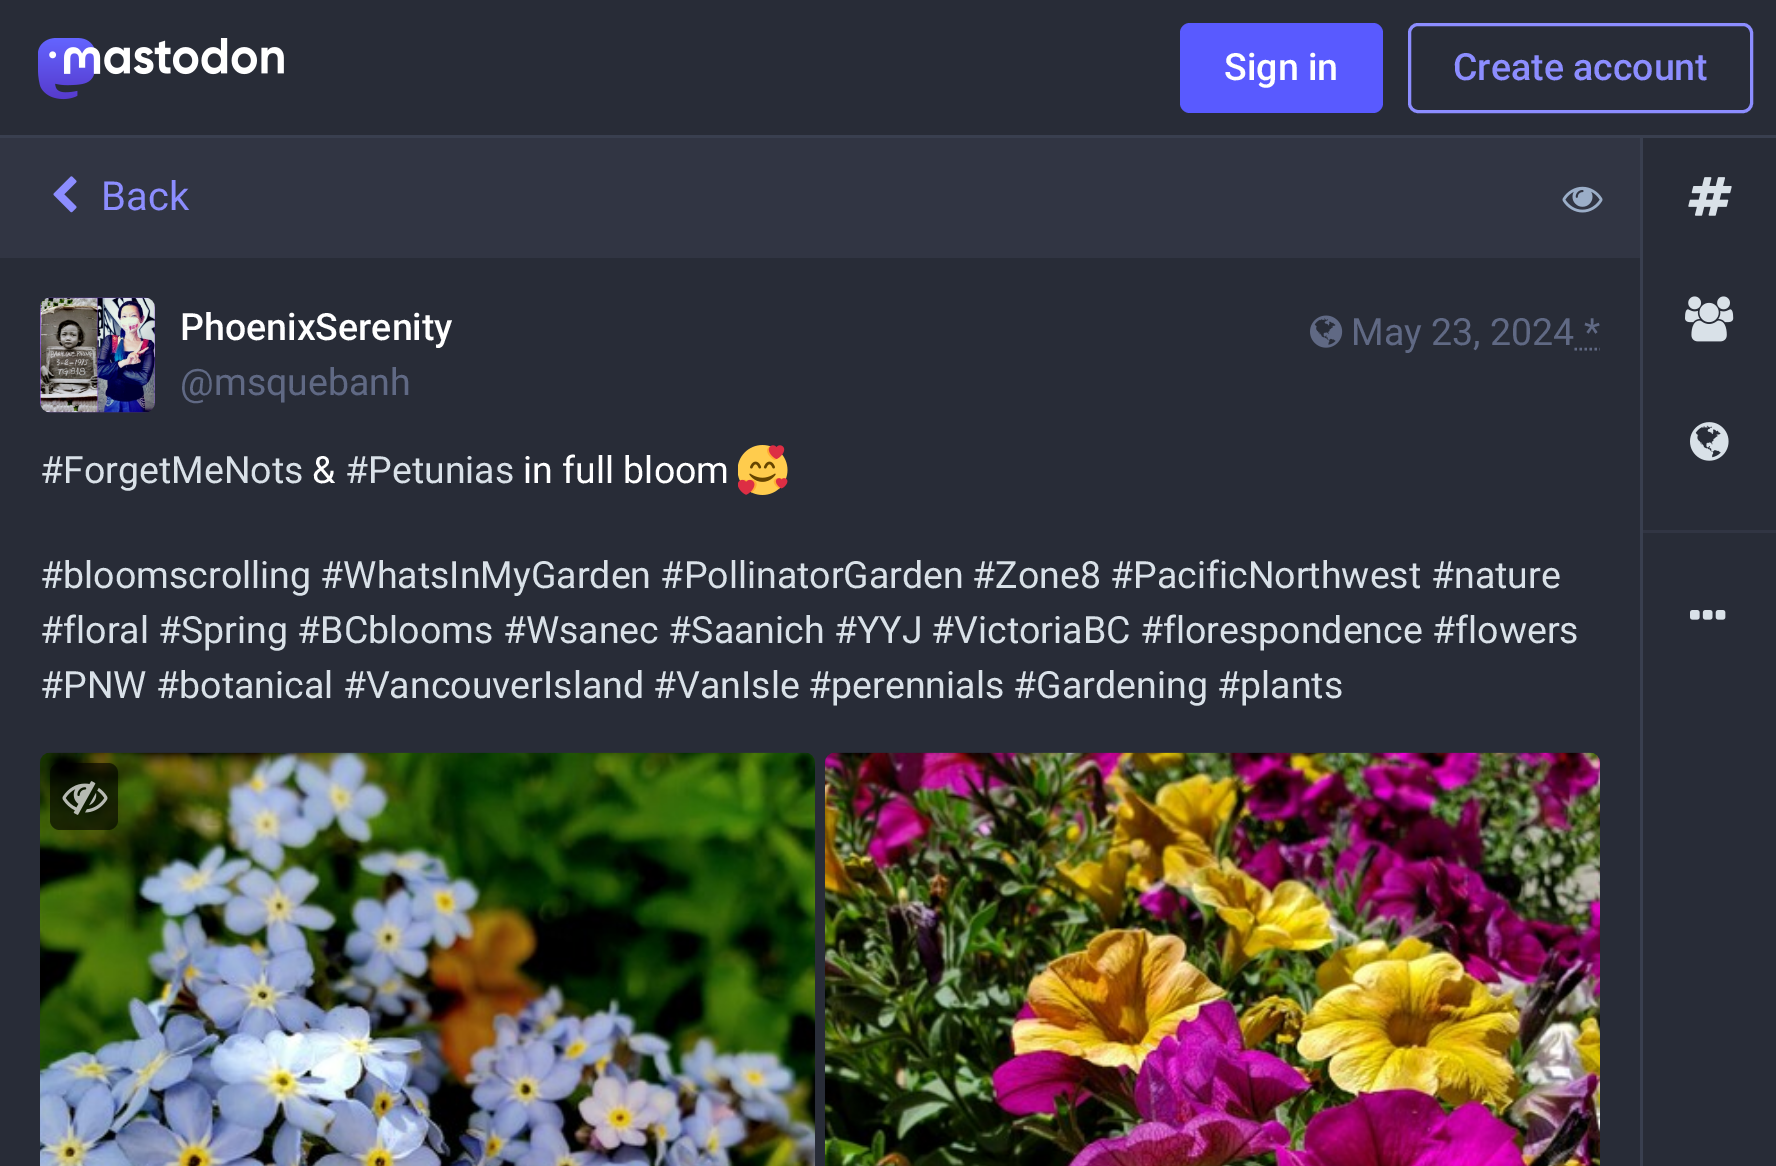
%!PS
<< /PageSize [1776 1166] /PageUsesTransparency true >> setpagedevice
/mt/moveto load def
/li/lineto load def
/fl/fill load def
/st/stroke load def
/lw/setlinewidth load def
/co { dup -16 bitshift 255 div exch dup -8 bitshift 255 and 255 div exch 255 and 255 div setrgbcolor } def
/fn { [ exch dup neg 0 0 3 -1 roll 0 0 ] selectfont } def
/tx { co fn moveto show } def
/bx { co rectfill } def
/al { dup .setfillconstantalpha .setstrokeconstantalpha } def
/rr { 5 dict begin { /r /h /w /y /x } { exch def } forall
  x r add y moveto x w add y 2 copy h add r arct x w add y h add x 1 index r arct
  x y h add x y r arct x y 2 copy exch w add exch r arct closepath end } def
/im { 5 dict begin { /h /w /y /x /name } { exch def } forall
  gsave x y translate w h scale
  w h 8 [w 0 0 h 0 0] name (r) file false 3 colorimage grestore end } def
0 .pushpdf14devicefilter
0 1166 translate 1 -1 scale
4 setmiterlimit
0 0 1776 1166 16#282C37 bx
0 135 1776 3 16#393F4F bx
(media/1.raw) 38 38 246 62 im
16#595AFF co
1180 23 203 90 10 rr fl
16#8C8DFF co
3 lw
1409.5 24.5 342 87 8.5 rr st
0 138 1640 120 16#313543 bx
(media/2.raw) 53 176 24 37 im
(media/3.raw) 1562 186 41 27 im
(media/4.raw) 40 297 115 116 im
(media/5.raw) 1310 315 33 33 im
16#606984 co
2.5 lw
[2.5 2.5] 0 setdash
1574.5 349 mt 1600 349 li st
(media/6.raw) 738 445 50 50 im
(media/7.raw) 40 752 775 414 im
(media/8.raw) 825 752 775 414 im
0.6 al
16#000000 co
50 763 68 67 10 rr fl
1 al
(media/9.raw) 62 781 46 34 im
1640 138 3 1028 16#393F4F bx
(media/10.raw) 1688 177 44 39 im
(media/11.raw) 1685 296 49 46 im
(media/12.raw) 1690 422 39 39 im
1643 530 133 3 16#313543 bx
(media/13.raw) 1690 610 36 10 im
(Sign in) 1224 80 /Roboto-Medium 37.5 16#FFFFFF tx
(Create account) 1453 80 /Roboto-Medium 37.5 16#8C8DFF tx
(Back) 101 210 /Roboto-Regular 40 16#8C8DFF tx
(PhoenixSerenity) 180 340 /Roboto-Medium 37.5 16#FFFFFF tx
(@msquebanh) 180 395 /Roboto-Regular 37.5 16#606984 tx
(May 23, 2024 *) 1351 345 /Roboto-Regular 37.5 16#606984 tx
(#ForgetMeNots) 40 483 /Roboto-Regular 37.5 16#D9E1E8 tx
(&) 312 483 /Roboto-Regular 37.5 16#FFFFFF tx
(#Petunias) 345 483 /Roboto-Regular 37.5 16#D9E1E8 tx
(in full bloom) 523 483 /Roboto-Regular 37.5 16#FFFFFF tx
(#bloomscrolling #WhatsInMyGarden #PollinatorGarden) 40 588 /Roboto-Regular 37.5 16#D9E1E8 tx
(#Zone8 #PacificNorthwest) 972 588 /Roboto-Regular 37.5 16#D9E1E8 tx
(#nature) 1431 588 /Roboto-Regular 37.5 16#D9E1E8 tx
(#floral) 40 643 /Roboto-Regular 37.5 16#D9E1E8 tx
(#Spring #BCblooms #Wsanec #Saanich #YYJ) 158 643 /Roboto-Regular 37.5 16#D9E1E8 tx
(#VictoriaBC #florespondence #flowers) 931 643 /Roboto-Regular 37.5 16#D9E1E8 tx
(#PNW #botanical #VancouverIsland) 40 698 /Roboto-Regular 37.5 16#D9E1E8 tx
(#VanIsle) 653 698 /Roboto-Regular 37.5 16#D9E1E8 tx
(#perennials #Gardening #plants) 808 698 /Roboto-Regular 37.5 16#D9E1E8 tx
.poppdf14devicefilter showpage
